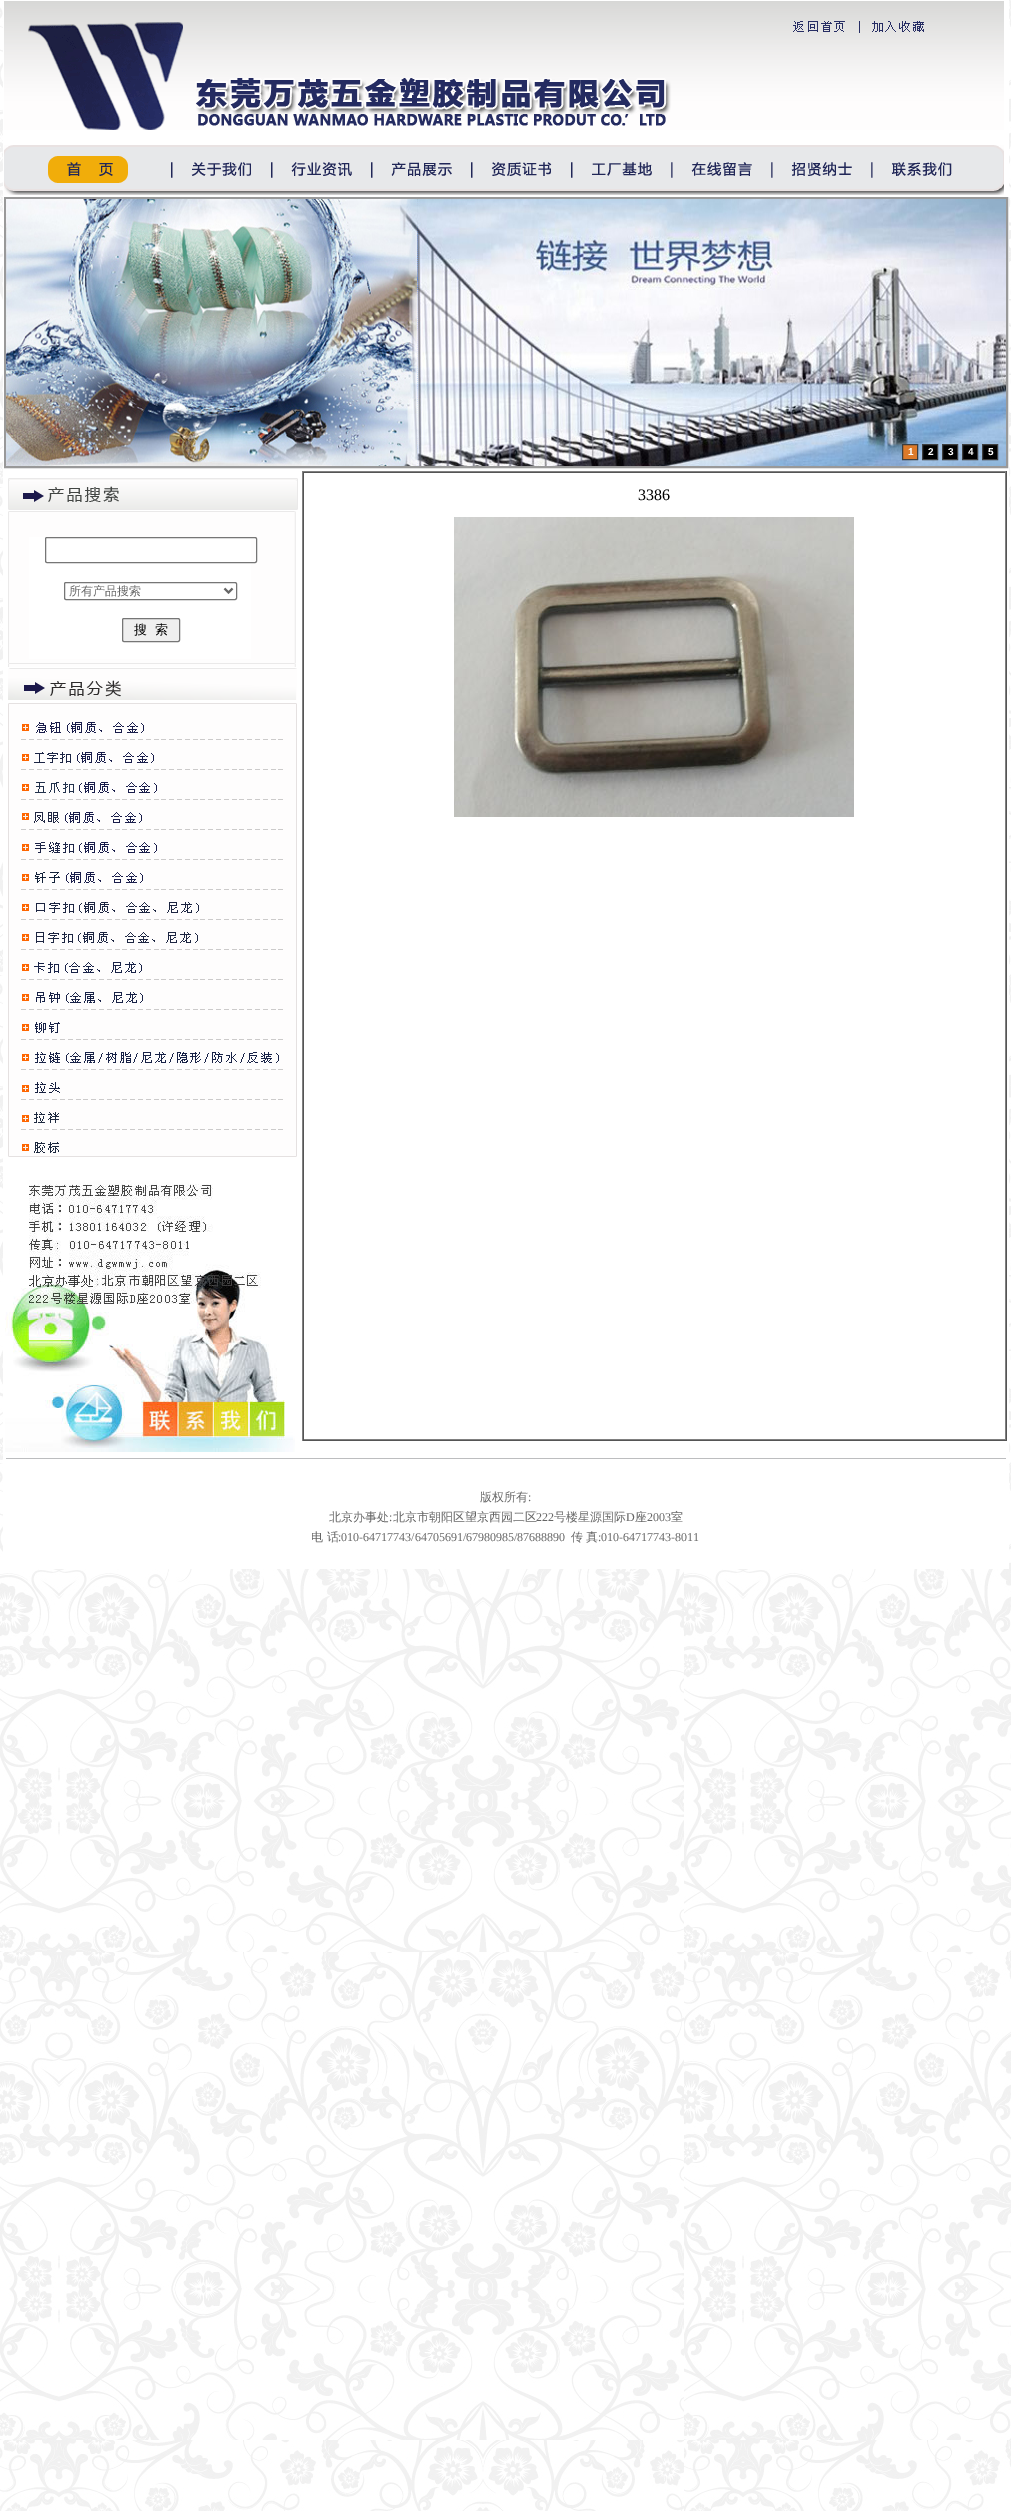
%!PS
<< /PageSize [1011 2511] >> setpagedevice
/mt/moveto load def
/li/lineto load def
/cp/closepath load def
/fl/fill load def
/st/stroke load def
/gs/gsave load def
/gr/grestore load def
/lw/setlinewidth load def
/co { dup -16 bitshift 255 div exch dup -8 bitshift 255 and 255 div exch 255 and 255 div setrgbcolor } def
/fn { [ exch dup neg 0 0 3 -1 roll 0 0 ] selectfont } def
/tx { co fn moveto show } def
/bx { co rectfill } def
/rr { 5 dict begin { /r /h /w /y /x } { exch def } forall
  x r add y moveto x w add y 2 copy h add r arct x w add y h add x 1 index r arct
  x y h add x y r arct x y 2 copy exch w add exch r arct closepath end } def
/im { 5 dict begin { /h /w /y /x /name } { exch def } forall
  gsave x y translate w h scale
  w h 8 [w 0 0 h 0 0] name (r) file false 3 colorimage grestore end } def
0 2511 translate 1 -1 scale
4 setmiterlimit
0 0 1011 2511 16#FFFFFF bx
(media/1.raw) 0 0 1011 2511 im
3 0 1006 1569 16#FFFFFF bx
(media/2.raw) 4 1 1000 129 im
(media/3.raw) 4 145 167 50 im
(media/4.raw) 171 145 100 50 im
(media/5.raw) 271 145 100 50 im
(media/6.raw) 371 145 100 50 im
(media/7.raw) 471 145 100 50 im
(media/8.raw) 571 145 100 50 im
(media/9.raw) 671 145 101 50 im
(media/10.raw) 772 145 100 50 im
(media/11.raw) 872 145 132 50 im
16#999999 co
2 lw
5 198 1002 269 rectstroke
(media/12.raw) 6 199 1000 267 im
16#DD7A2A co
902.5 444.5 mt 917.5 444.5 li 917.5 459.5 li 902.5 459.5 li cp gs fl gr
16#3E3E3E co
1 lw
st
16#000000 co
922.5 444.5 mt 937.5 444.5 li 937.5 459.5 li 922.5 459.5 li cp gs fl gr
16#3E3E3E co
st
16#000000 co
942.5 444.5 mt 957.5 444.5 li 957.5 459.5 li 942.5 459.5 li cp gs fl gr
16#3E3E3E co
st
16#000000 co
962.5 444.5 mt 977.5 444.5 li 977.5 459.5 li 962.5 459.5 li cp gs fl gr
16#3E3E3E co
st
16#000000 co
982.5 444.5 mt 997.5 444.5 li 997.5 459.5 li 982.5 459.5 li cp gs fl gr
16#3E3E3E co
st
302 471 705 1 16#808080 bx
1006 471 1 970 16#555555 bx
302 1440 705 1 16#555555 bx
302 471 1 970 16#808080 bx
303 472 703 1 16#555555 bx
1005 472 1 968 16#808080 bx
303 1439 703 1 16#808080 bx
303 472 1 968 16#555555 bx
(media/13.raw) 454 517 400 300 im
(media/14.raw) 8 478 290 32 im
(media/15.raw) 8 511 288 156 im
16#767676 co
45.5 537.5 211 25 1.5 rr st
64.5 582.5 172 17 1.5 rr st
16#666666 co
2 lw
224.5 588.5 mt 228.5 592.5 li 232.5 588.5 li st
16#EFEFEF co
122.5 618.5 57 23 1.5 rr gs fl gr
16#767676 co
1 lw
st
(media/16.raw) 8 668 289 32 im
(media/17.raw) 8 703 289 454 im
(media/18.raw) 5 1180 290 272 im
6 1458 1000 1 16#BCBDBF bx
(1) 908 455 /LiberationSans-Bold 10 16#FFFFFF tx
(2) 928 455 /LiberationSans-Bold 10 16#FFFFFF tx
(3) 948 455 /LiberationSans-Bold 10 16#FFFFFF tx
(4) 968 455 /LiberationSans-Bold 10 16#FFFFFF tx
(5) 988 455 /LiberationSans-Bold 10 16#FFFFFF tx
(3386) 638 500 /LiberationSerif-Regular 16 16#000000 tx
(所有产品搜索) 69 595 /WenQuanYiZenHei-Medium 12 16#666666 tx
(搜) 134 634 /WenQuanYiZenHei-Medium 13 16#000000 tx
(索) 155 634 /WenQuanYiZenHei-Medium 13 16#000000 tx
(版权所有) 480 1501 /WenQuanYiZenHei-Medium 12 16#666666 tx
(:) 528 1501 /LiberationSerif-Regular 12 16#666666 tx
(北京办事处 北京市朝阳区望京西园二区) 329 1521 /WenQuanYiZenHei-Medium 12 16#666666 tx
(222) 536 1521 /LiberationSerif-Regular 12 16#666666 tx
(号楼星源国际) 554 1521 /WenQuanYiZenHei-Medium 12 16#666666 tx
(D) 626 1521 /LiberationSerif-Regular 12 16#666666 tx
(座) 635 1521 /WenQuanYiZenHei-Medium 12 16#666666 tx
(2003) 647 1521 /LiberationSerif-Regular 12 16#666666 tx
(室) 671 1521 /WenQuanYiZenHei-Medium 12 16#666666 tx
(:) 389 1521 /LiberationSerif-Regular 12 16#666666 tx
(电 话) 311 1541 /WenQuanYiZenHei-Medium 12 16#666666 tx
(:010-64717743/64705691/67980985/87688890) 338 1541 /LiberationSerif-Regular 12 16#666666 tx
(传) 571 1541 /WenQuanYiZenHei-Medium 12 16#666666 tx
(真) 586 1541 /WenQuanYiZenHei-Medium 12 16#666666 tx
(:010-64717743-8011) 598 1541 /LiberationSerif-Regular 12 16#666666 tx
showpage
